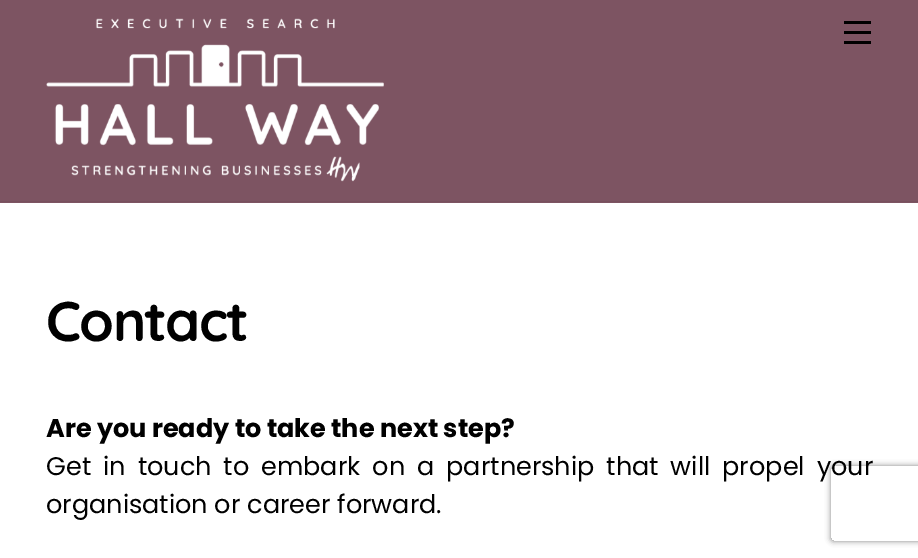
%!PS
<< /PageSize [918 558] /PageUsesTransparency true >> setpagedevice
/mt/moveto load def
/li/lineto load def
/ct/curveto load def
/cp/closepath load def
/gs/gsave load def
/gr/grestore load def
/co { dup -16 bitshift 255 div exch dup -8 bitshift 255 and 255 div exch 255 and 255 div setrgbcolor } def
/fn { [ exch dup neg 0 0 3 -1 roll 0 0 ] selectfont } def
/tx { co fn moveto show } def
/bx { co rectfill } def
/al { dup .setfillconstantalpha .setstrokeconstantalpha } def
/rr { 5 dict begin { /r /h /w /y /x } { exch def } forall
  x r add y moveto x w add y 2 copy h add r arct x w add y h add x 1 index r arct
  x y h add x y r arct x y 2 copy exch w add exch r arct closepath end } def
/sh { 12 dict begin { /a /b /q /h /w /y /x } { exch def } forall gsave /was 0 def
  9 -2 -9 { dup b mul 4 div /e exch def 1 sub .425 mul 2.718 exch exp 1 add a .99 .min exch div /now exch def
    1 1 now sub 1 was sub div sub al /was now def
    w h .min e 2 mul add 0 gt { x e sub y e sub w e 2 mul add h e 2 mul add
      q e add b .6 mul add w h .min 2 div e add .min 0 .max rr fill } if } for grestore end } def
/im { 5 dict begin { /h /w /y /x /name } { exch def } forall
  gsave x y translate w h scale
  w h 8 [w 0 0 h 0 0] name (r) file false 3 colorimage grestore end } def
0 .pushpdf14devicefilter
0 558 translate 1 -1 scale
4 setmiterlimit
0 0 918 558 16#FFFFFF bx
0 0 918 203 16#7D5462 bx
0 201 918 1 16#77505D bx
(media/1.raw) 46 18 338 164 im
844 41 27 3 16#000000 bx
844 21 27 3 16#000000 bx
844 31 27 3 16#000000 bx
gs
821 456 mt 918 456 li 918 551 li 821 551 li cp 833.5 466 mt 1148.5 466 li 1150 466 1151 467 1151 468.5 ct 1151 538.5 li 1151 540 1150 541 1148.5 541 ct 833.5 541 li 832 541 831 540 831 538.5 ct 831 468.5 li 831 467 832 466 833.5 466 ct cp eoclip newpath
16#808080 co
831 466 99 75 2.5 3 1 sh
gr
/Quicksand-Bold 56 fn
46 341 mt -1.75 0 (Contact) ashow
(Are you ready to take the next step?) 46 437 /Poppins-Bold 25.5 16#000000 tx
/Poppins-Regular 25.5 fn
46 475 mt 5.25 0 32 (Get in touch to embark on a partnership that will propel your) widthshow
(organisation or career forward.) 46 513 /Poppins-Regular 25.5 16#000000 tx
.poppdf14devicefilter showpage
